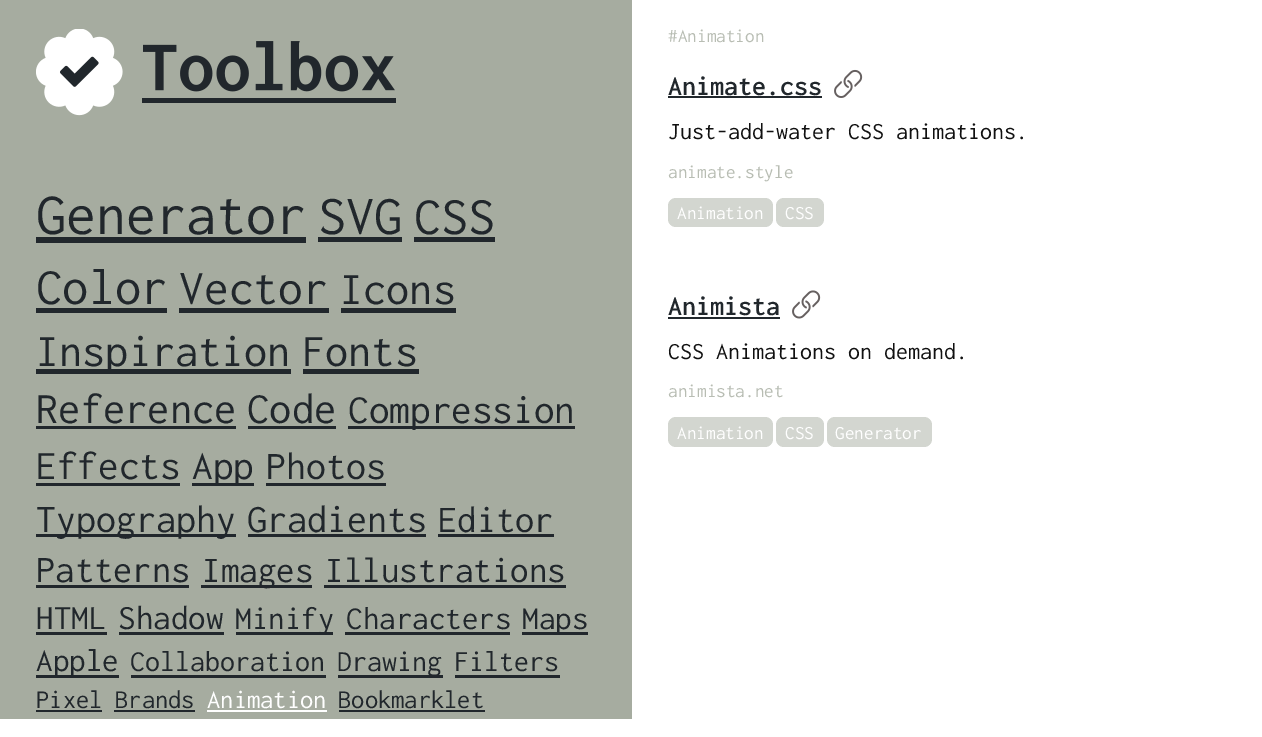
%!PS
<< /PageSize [1262 737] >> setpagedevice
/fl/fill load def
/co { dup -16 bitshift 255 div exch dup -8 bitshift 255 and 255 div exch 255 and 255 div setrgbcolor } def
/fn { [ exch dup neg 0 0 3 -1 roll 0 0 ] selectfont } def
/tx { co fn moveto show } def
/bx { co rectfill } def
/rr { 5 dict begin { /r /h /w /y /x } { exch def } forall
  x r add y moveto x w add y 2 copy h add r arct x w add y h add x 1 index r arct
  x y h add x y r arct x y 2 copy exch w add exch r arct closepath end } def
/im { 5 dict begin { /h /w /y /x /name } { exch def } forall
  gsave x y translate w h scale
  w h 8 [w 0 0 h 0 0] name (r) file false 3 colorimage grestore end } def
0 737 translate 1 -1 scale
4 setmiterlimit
0 0 1262 737 16#FFFFFF bx
0 0 632 719 16#A6ACA0 bx
(media/1.raw) 36 29 360 87 im
36 237 270 6 16#21272C bx
318 237 84 5 16#21272C bx
414 237 81 5 16#21272C bx
36 308 131 5 16#21272C bx
179 308 150 5 16#21272C bx
341 308 115 5 16#21272C bx
36 369 255 5 16#21272C bx
303 369 116 5 16#21272C bx
36 426 200 3 16#21272C bx
248 426 88 3 16#21272C bx
348 426 227 3 16#21272C bx
36 483 144 3 16#21272C bx
192 483 62 3 16#21272C bx
266 483 120 3 16#21272C bx
36 534 200 3 16#21272C bx
248 534 178 3 16#21272C bx
438 534 116 3 16#21272C bx
36 585 153 3 16#21272C bx
201 585 111 3 16#21272C bx
324 585 242 3 16#21272C bx
36 632 71 3 16#21272C bx
119 632 105 3 16#21272C bx
236 632 97 3 16#21272C bx
345 632 165 3 16#21272C bx
522 632 66 3 16#21272C bx
36 675 83 3 16#21272C bx
131 675 195 3 16#21272C bx
338 675 105 3 16#21272C bx
455 675 105 3 16#21272C bx
36 710 66 2 16#21272C bx
114 710 81 2 16#21272C bx
207 710 120 2 16#FFFFFF bx
339 710 146 2 16#21272C bx
668 96 154 2 16#21272C bx
(media/2.raw) 834 69 29 29 im
16#D3D6D0 co
668 198 105 29 8 rr fl
776 198 48 29 8 rr fl
668 317 112 2 16#21272C bx
(media/3.raw) 792 290 29 29 im
16#D3D6D0 co
668 417 105 30 8 rr fl
776 417 48 30 8 rr fl
827 417 105 30 8 rr fl
(Generator) 36 234 /Inconsolata-Regular 60 16#21272C tx
(SVG) 318 234 /Inconsolata-Regular 56 16#21272C tx
(CSS) 414 234 /Inconsolata-Regular 54 16#21272C tx
(Color) 36 304 /Inconsolata-Regular 52.5 16#21272C tx
(Vector) 179 304 /Inconsolata-Regular 49.5 16#21272C tx
(Icons) 340 304 /Inconsolata-Regular 46.25 16#21272C tx
(Inspiration) 36 366 /Inconsolata-Regular 46.25 16#21272C tx
(Fonts) 302 366 /Inconsolata-Regular 46.25 16#21272C tx
(Reference) 36 423 /Inconsolata-Regular 44.5 16#21272C tx
(Code) 247 423 /Inconsolata-Regular 44.5 16#21272C tx
(Compression) 348 423 /Inconsolata-Regular 41.25 16#21272C tx
(Effects) 36 479 /Inconsolata-Regular 41.25 16#21272C tx
(App) 192 479 /Inconsolata-Regular 41.25 16#21272C tx
(Photos) 266 479 /Inconsolata-Regular 40 16#21272C tx
(Typography) 36 532 /Inconsolata-Regular 40 16#21272C tx
(Gradients) 247 532 /Inconsolata-Regular 40 16#21272C tx
(Editor) 438 532 /Inconsolata-Regular 38.5 16#21272C tx
(Patterns) 36 582 /Inconsolata-Regular 38.5 16#21272C tx
(Images) 202 582 /Inconsolata-Regular 37 16#21272C tx
(Illustrations) 325 582 /Inconsolata-Regular 37 16#21272C tx
(HTML) 36 629 /Inconsolata-Regular 35 16#21272C tx
(Shadow) 118 629 /Inconsolata-Regular 35 16#21272C tx
(Minify) 235 629 /Inconsolata-Regular 33 16#21272C tx
(Characters) 346 629 /Inconsolata-Regular 33 16#21272C tx
(Maps) 522 629 /Inconsolata-Regular 33 16#21272C tx
(Apple) 36 671 /Inconsolata-Regular 33 16#21272C tx
(Collaboration) 130 671 /Inconsolata-Regular 30 16#21272C tx
(Drawing) 337 671 /Inconsolata-Regular 30 16#21272C tx
(Filters) 454 671 /Inconsolata-Regular 30 16#21272C tx
(Pixel) 36 708 /Inconsolata-Regular 26.5 16#21272C tx
(Brands) 115 708 /Inconsolata-Regular 26.5 16#21272C tx
(Animation) 207 708 /Inconsolata-Regular 26.5 16#FFFFFF tx
(Bookmarklet) 338 708 /Inconsolata-Regular 26.5 16#21272C tx
(#Animation) 668 42 /Inconsolata-Regular 19.25 16#B8BDB3 tx
(Animate.css) 668 95 /Inconsolata-SemiBold 28 16#21272C tx
(Just-add-water CSS animations.) 668 139 /Inconsolata-Regular 24 16#111111 tx
(animate.style) 668 178 /Inconsolata-Regular 19.25 16#B8BDB3 tx
(Animation) 677 219 /Inconsolata-Regular 19.25 16#FFFFFF tx
(CSS) 785 219 /Inconsolata-Regular 19.25 16#FFFFFF tx
(Animista) 668 315 /Inconsolata-SemiBold 28 16#21272C tx
(CSS Animations on demand.) 668 359 /Inconsolata-Regular 24 16#111111 tx
(animista.net) 668 397 /Inconsolata-Regular 19.25 16#B8BDB3 tx
(Animation) 677 439 /Inconsolata-Regular 19.25 16#FFFFFF tx
(CSS) 785 439 /Inconsolata-Regular 19.25 16#FFFFFF tx
(Generator) 835 439 /Inconsolata-Regular 19.25 16#FFFFFF tx
showpage
